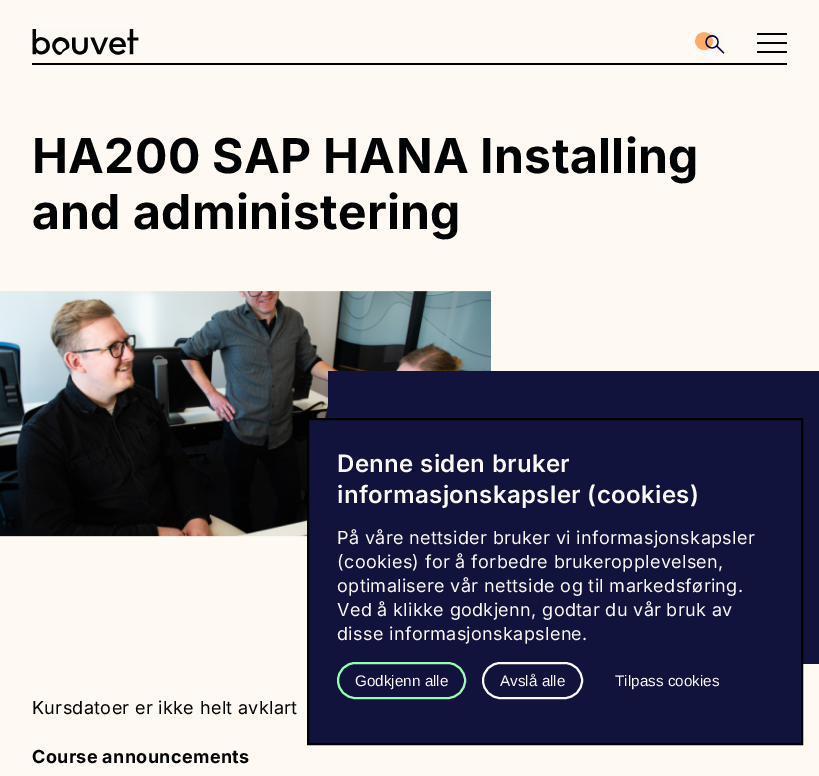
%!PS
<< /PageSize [819 776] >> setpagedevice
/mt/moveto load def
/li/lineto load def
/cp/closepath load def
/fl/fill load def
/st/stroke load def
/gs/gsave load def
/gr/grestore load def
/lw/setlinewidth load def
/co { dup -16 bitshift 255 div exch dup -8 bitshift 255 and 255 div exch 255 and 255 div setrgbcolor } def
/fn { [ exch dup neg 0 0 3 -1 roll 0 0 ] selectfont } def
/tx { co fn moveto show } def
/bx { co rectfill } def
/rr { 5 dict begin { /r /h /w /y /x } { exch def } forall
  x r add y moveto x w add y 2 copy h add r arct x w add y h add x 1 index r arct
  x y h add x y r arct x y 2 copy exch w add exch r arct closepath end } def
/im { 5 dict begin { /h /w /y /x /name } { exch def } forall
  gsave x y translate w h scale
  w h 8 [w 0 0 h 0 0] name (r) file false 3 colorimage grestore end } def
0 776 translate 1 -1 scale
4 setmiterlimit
0 0 819 776 16#FEF9F2 bx
32 63 755 2 16#000000 bx
(media/1.raw) 32 29 107 26 im
(media/2.raw) 695 32 30 22 im
16#010203 co
757 33 30 2 1 rr fl
757 42 30 2 1 rr fl
757 51 30 2 1 rr fl
(media/3.raw) 0 291 491 246 im
328 371 491 293 16#11133C bx
308 419 mt 802 419 li 802 744 li 308 744 li cp gs fl gr
16#010203 co
2 lw
st
16#97FFB3 co
338 663 127 35 17.5 rr st
16#FCF8F3 co
483 663 99 35 17.5 rr st
/Inter-Bold 48 fn
16#010203 co
32 173 mt .35 0 (HA200 SAP HANA Installing) ashow
32 229 mt .35 0 (and administering) ashow
/Inter-Regular 18 fn
32 714 mt .35 0 (Kursdatoer er ikke helt avklart) ashow
/Inter-Bold 18 fn
32 763 mt .35 0 (Course announcements) ashow
/Inter-SemiBold 24 fn
16#FCF8F3 co
337 472 mt .35 0 (Denne siden bruker) ashow
337 503 mt .35 0 (informasjonskapsler \(cookies\)) ashow
/Inter-Regular 18 fn
337 544 mt .35 0 (På våre nettsider bruker vi informasjonskapsler) ashow
337 568 mt .35 0 (\(cookies\) for å forbedre brukeropplevelsen,) ashow
337 592 mt .35 0 (optimalisere vår nettside og til markedsføring.) ashow
337 616 mt .35 0 (Ved å klikke godkjenn, godtar du vår bruk av) ashow
337 640 mt .35 0 (disse informasjonskapslene.) ashow
(Godkjenn alle) 355 686 /LiberationSans-Regular 15.25 16#FCF8F3 tx
(Avslå alle) 500 686 /LiberationSans-Regular 15.25 16#FCF8F3 tx
(Tilpass cookies) 615 686 /LiberationSans-Regular 15.25 16#FCF8F3 tx
showpage
